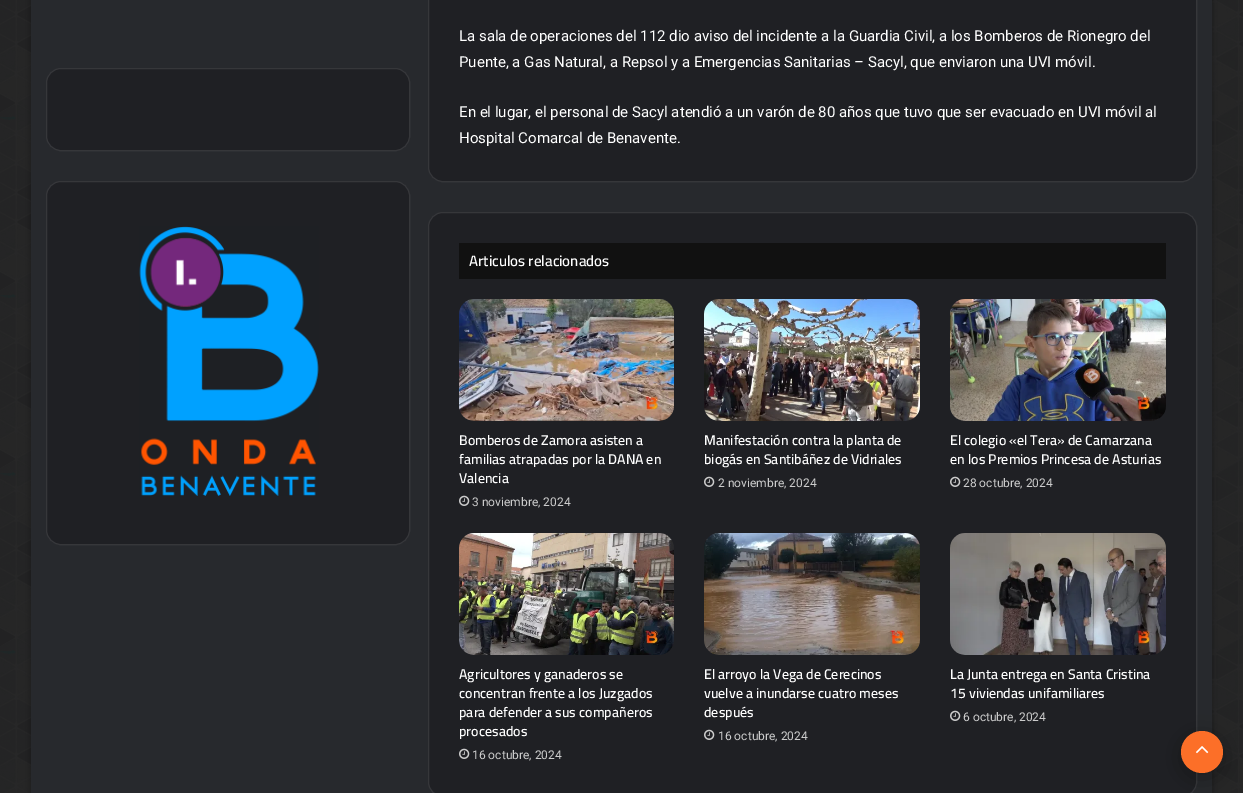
%!PS
<< /PageSize [1243 793] /PageUsesTransparency true >> setpagedevice
/fl/fill load def
/st/stroke load def
/co { dup -16 bitshift 255 div exch dup -8 bitshift 255 and 255 div exch 255 and 255 div setrgbcolor } def
/fn { [ exch dup neg 0 0 3 -1 roll 0 0 ] selectfont } def
/tx { co fn moveto show } def
/bx { co rectfill } def
/al { dup .setfillconstantalpha .setstrokeconstantalpha } def
/ci { newpath 0 360 arc closepath } def
/rr { 5 dict begin { /r /h /w /y /x } { exch def } forall
  x r add y moveto x w add y 2 copy h add r arct x w add y h add x 1 index r arct
  x y h add x y r arct x y 2 copy exch w add exch r arct closepath end } def
/sh { 12 dict begin { /a /b /q /h /w /y /x } { exch def } forall gsave /was 0 def
  9 -2 -9 { dup b mul 4 div /e exch def 1 sub .425 mul 2.718 exch exp 1 add a .99 .min exch div /now exch def
    1 1 now sub 1 was sub div sub al /was now def
    w h .min e 2 mul add 0 gt { x e sub y e sub w e 2 mul add h e 2 mul add
      q e add b .6 mul add w h .min 2 div e add .min 0 .max rr fill } if } for grestore end } def
/im { 5 dict begin { /h /w /y /x /name } { exch def } forall
  gsave x y translate w h scale
  w h 8 [w 0 0 h 0 0] name (r) file false 3 colorimage grestore end } def
0 .pushpdf14devicefilter
0 793 translate 1 -1 scale
4 setmiterlimit
0 0 1243 793 16#090A0B bx
(media/1.raw) 0 0 1243 793 im
16#000000 co
31 -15 1181 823 0 5 .3 sh
31 0 1181 793 16#27292D bx
16#1F2024 co
46 68 364 83 15 rr fl
0.1 al
16#FFFFFF co
46.5 68.5 363 82 14.5 rr st
1 al
16#1F2024 co
46 181 364 364 15 rr fl
0.1 al
16#FFFFFF co
46.5 181.5 363 363 14.5 rr st
1 al
(media/2.raw) 139 226 180 270 im
16#1F2024 co
428 -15 769 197 15 rr fl
0.1 al
16#FFFFFF co
428.5 -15.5 768 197 14.5 rr st
1 al
16#1F2024 co
428 212 769 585 15 rr fl
0.1 al
16#FFFFFF co
428.5 212.5 768 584 14.5 rr st
1 al
459 243 707 36 16#111111 bx
(media/3.raw) 459 299 215 122 im
(media/4.raw) 459 495 11 11 im
(media/5.raw) 704 299 216 122 im
(media/4.raw) 704 476 11 11 im
(media/6.raw) 950 299 216 122 im
(media/4.raw) 950 476 11 11 im
(media/7.raw) 459 533 215 122 im
(media/4.raw) 459 748 11 11 im
(media/8.raw) 704 533 216 122 im
(media/4.raw) 704 729 11 11 im
(media/9.raw) 950 533 216 122 im
(media/4.raw) 950 710 11 11 im
16#000000 co
1181 736 42 42 21 12.5 .3 sh
16#FC6F28 co
1202 752 21 ci fl
(media/10.raw) 1196 746 13 8 im
(La sala de operaciones del 112 dio aviso del incidente a la Guardia Civil, a los Bomberos de Rionegro del) 459 41 /Roboto-Regular 15 16#FFFFFF tx
(Puente, a Gas Natural, a Repsol y a Emergencias Sanitarias – Sacyl, que enviaron una UVI móvil.) 459 67 /Roboto-Regular 15 16#FFFFFF tx
(En el lugar, el personal de Sacyl atendió a un varón de 80 años que tuvo que ser evacuado en UVI móvil al) 459 117 /Roboto-Regular 15 16#FFFFFF tx
(Hospital Comarcal de Benavente.) 459 143 /Roboto-Regular 15 16#FFFFFF tx
(Articulos relacionados) 469 266 /Cairo-SemiBold 15 16#FFFFFF tx
(Bomberos de Zamora asisten a) 459 445 /Cairo-SemiBold 14 16#FFFFFF tx
(familias atrapadas por la DANA en) 459 464 /Cairo-SemiBold 14 16#FFFFFF tx
(Valencia) 459 483 /Cairo-SemiBold 14 16#FFFFFF tx
(3 noviembre, 2024) 472 506 /Roboto-Regular 12 16#CCCCCC tx
(Manifestación contra la planta de) 704 445 /Cairo-SemiBold 14 16#FFFFFF tx
(biogás en Santibáñez de Vidriales) 704 464 /Cairo-SemiBold 14 16#FFFFFF tx
(2 noviembre, 2024) 718 487 /Roboto-Regular 12 16#CCCCCC tx
(El colegio «el Tera» de Camarzana) 950 445 /Cairo-SemiBold 14 16#FFFFFF tx
(en los Premios Princesa de Asturias) 950 464 /Cairo-SemiBold 14 16#FFFFFF tx
(28 octubre, 2024) 963 487 /Roboto-Regular 12 16#CCCCCC tx
(Agricultores y ganaderos se) 459 679 /Cairo-SemiBold 14 16#FFFFFF tx
(concentran frente a los Juzgados) 459 698 /Cairo-SemiBold 14 16#FFFFFF tx
(para defender a sus compañeros) 459 717 /Cairo-SemiBold 14 16#FFFFFF tx
(procesados) 459 736 /Cairo-SemiBold 14 16#FFFFFF tx
(16 octubre, 2024) 472 759 /Roboto-Regular 12 16#CCCCCC tx
(El arroyo la Vega de Cerecinos) 704 679 /Cairo-SemiBold 14 16#FFFFFF tx
(vuelve a inundarse cuatro meses) 704 698 /Cairo-SemiBold 14 16#FFFFFF tx
(después) 704 717 /Cairo-SemiBold 14 16#FFFFFF tx
(16 octubre, 2024) 718 740 /Roboto-Regular 12 16#CCCCCC tx
(La Junta entrega en Santa Cristina) 950 679 /Cairo-SemiBold 14 16#FFFFFF tx
(15 viviendas unifamiliares) 950 698 /Cairo-SemiBold 14 16#FFFFFF tx
(6 octubre, 2024) 963 721 /Roboto-Regular 12 16#CCCCCC tx
.poppdf14devicefilter showpage
